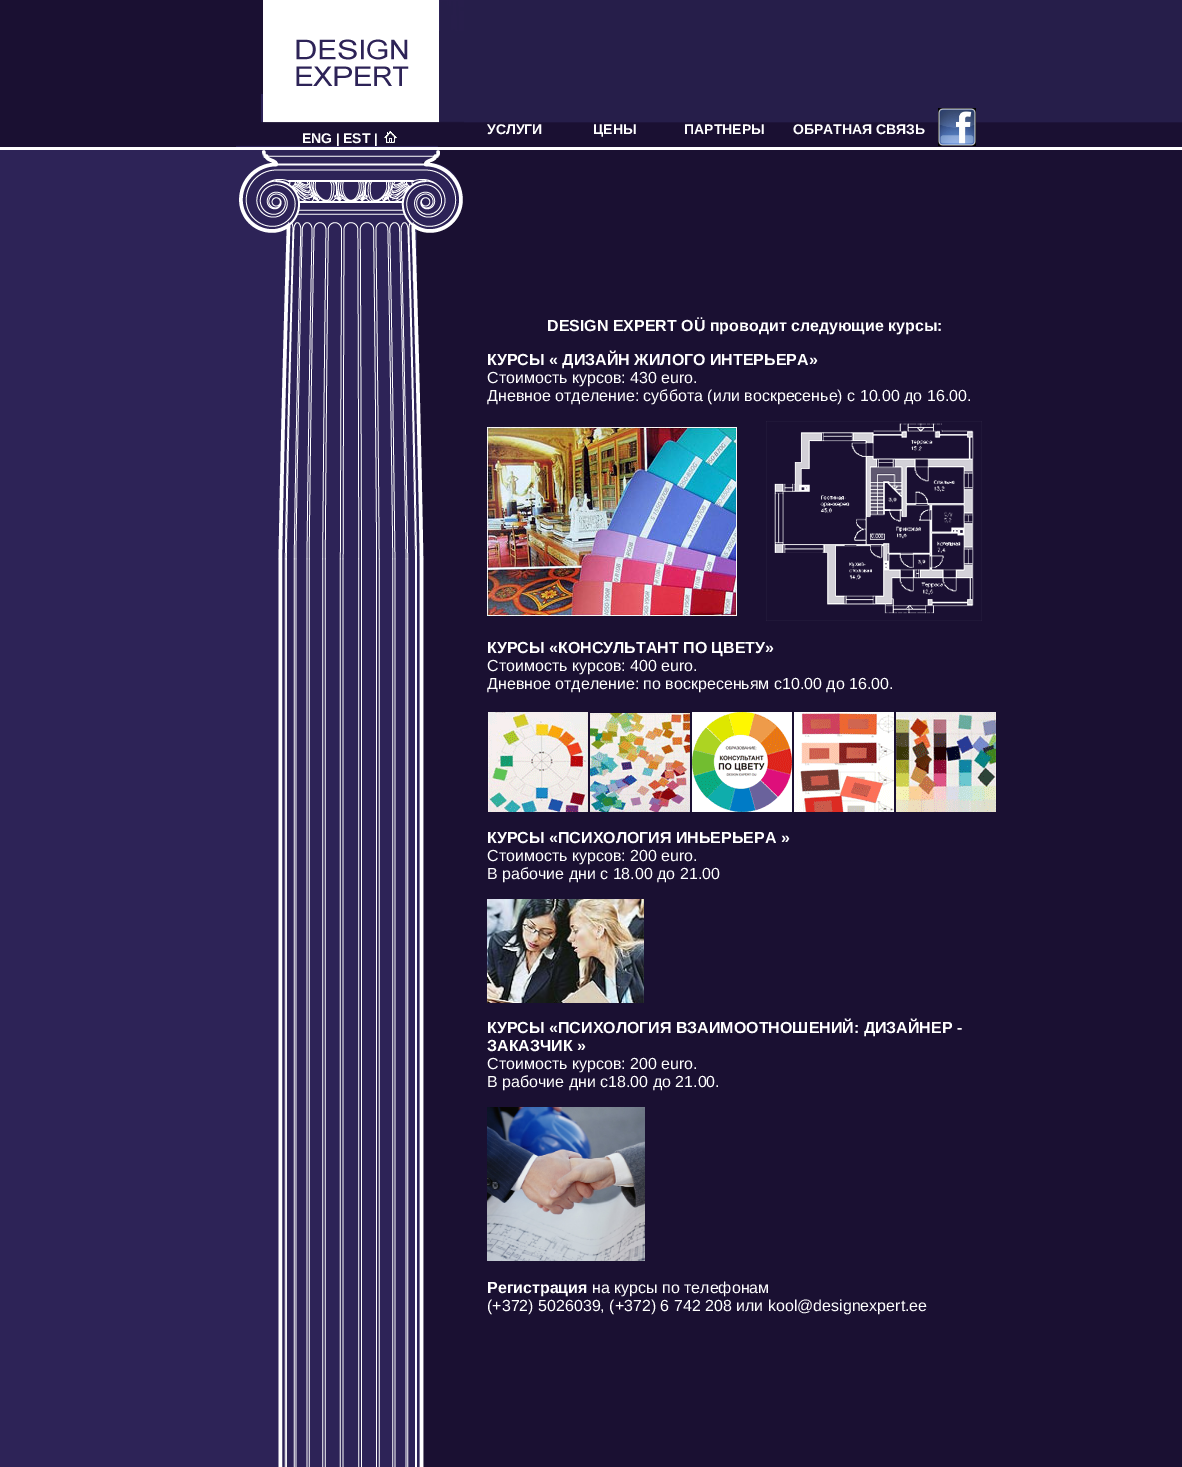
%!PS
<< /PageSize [1182 1467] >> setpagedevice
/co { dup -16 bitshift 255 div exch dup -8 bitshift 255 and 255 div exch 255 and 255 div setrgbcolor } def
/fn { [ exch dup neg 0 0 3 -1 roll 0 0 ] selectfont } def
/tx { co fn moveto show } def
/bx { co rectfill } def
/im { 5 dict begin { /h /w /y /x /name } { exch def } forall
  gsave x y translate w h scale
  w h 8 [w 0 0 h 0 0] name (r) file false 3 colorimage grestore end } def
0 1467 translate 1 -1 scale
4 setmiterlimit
0 0 1182 1467 16#FFFFFF bx
0 0 236 147 16#1A1032 bx
464 0 718 122 16#261E4A bx
(media/1.raw) 464 122 718 28 im
(media/2.raw) 938 108 38 38 im
(media/3.raw) 236 0 228 147 im
(media/4.raw) 296 39 113 47 im
(media/5.raw) 384 131 13 12 im
0 150 236 1317 16#2D2357 bx
(media/6.raw) 236 150 228 1317 im
(media/7.raw) 239 150 224 410 im
464 150 718 1317 16#1A1032 bx
(media/8.raw) 487 427 250 189 im
(media/9.raw) 766 421 216 200 im
(media/10.raw) 488 712 508 100 im
(media/11.raw) 487 899 157 104 im
(media/12.raw) 487 1107 158 154 im
(УСЛУГИ) 487 134 /LiberationSans-Bold 14 16#FFFFFF tx
(ЦЕНЫ) 593 134 /LiberationSans-Bold 14 16#FFFFFF tx
(ПАРТНЕРЫ) 684 134 /LiberationSans-Bold 14 16#FFFFFF tx
(ОБРАТНАЯ СВЯЗЬ) 793 134 /LiberationSans-Bold 14 16#FFFFFF tx
(ENG) 302 143 /LiberationSans-Bold 14 16#FFFFFF tx
(|) 336 143 /LiberationSans-Bold 13 16#FFFFFF tx
(EST) 343 143 /LiberationSans-Bold 14 16#FFFFFF tx
(|) 374 143 /LiberationSans-Bold 13 16#FFFFFF tx
(DESIGN EXPERT OÜ проводит следующие курсы:) 547 331 /LiberationSans-Bold 16 16#FFFFFF tx
(КУРСЫ « ДИЗАЙН ЖИЛОГО ИНТЕРЬЕРА») 487 365 /LiberationSans-Bold 16 16#FFFFFF tx
(Стоимость курсов: 430 euro.) 487 383 /LiberationSans-Regular 16 16#FFFFFF tx
(Дневное отделение: суббота \(или воскресенье\) с 10.00 до 16.00.) 487 401 /LiberationSans-Regular 16 16#FFFFFF tx
(КУРСЫ «КОНСУЛЬТАНТ ПО ЦВЕТУ») 487 653 /LiberationSans-Bold 16 16#FFFFFF tx
(Стоимость курсов: 400 euro.) 487 671 /LiberationSans-Regular 16 16#FFFFFF tx
(Дневное отделение: по воскресеньям с10.00 до 16.00.) 487 689 /LiberationSans-Regular 16 16#FFFFFF tx
(КУРСЫ «ПСИХОЛОГИЯ ИНЬЕРЬЕРА ») 487 843 /LiberationSans-Bold 16 16#FFFFFF tx
(Стоимость курсов: 200 euro.) 487 861 /LiberationSans-Regular 16 16#FFFFFF tx
(В рабочие дни с 18.00 до 21.00) 487 879 /LiberationSans-Regular 16 16#FFFFFF tx
(КУРСЫ «ПСИХОЛОГИЯ ВЗАИМООТНОШЕНИЙ: ДИЗАЙНЕР -) 487 1033 /LiberationSans-Bold 16 16#FFFFFF tx
(ЗАКАЗЧИК ») 487 1051 /LiberationSans-Bold 16 16#FFFFFF tx
(Стоимость курсов: 200 euro.) 487 1069 /LiberationSans-Regular 16 16#FFFFFF tx
(В рабочие дни с18.00 до 21.00.) 487 1087 /LiberationSans-Regular 16 16#FFFFFF tx
(Регистрация) 487 1293 /LiberationSans-Bold 16 16#FFFFFF tx
(на курсы по телефонам) 592 1293 /LiberationSans-Regular 16 16#FFFFFF tx
(\(+372\) 5026039, \(+372\) 6 742 208 или kool@designexpert.ee) 487 1311 /LiberationSans-Regular 16 16#FFFFFF tx
showpage
